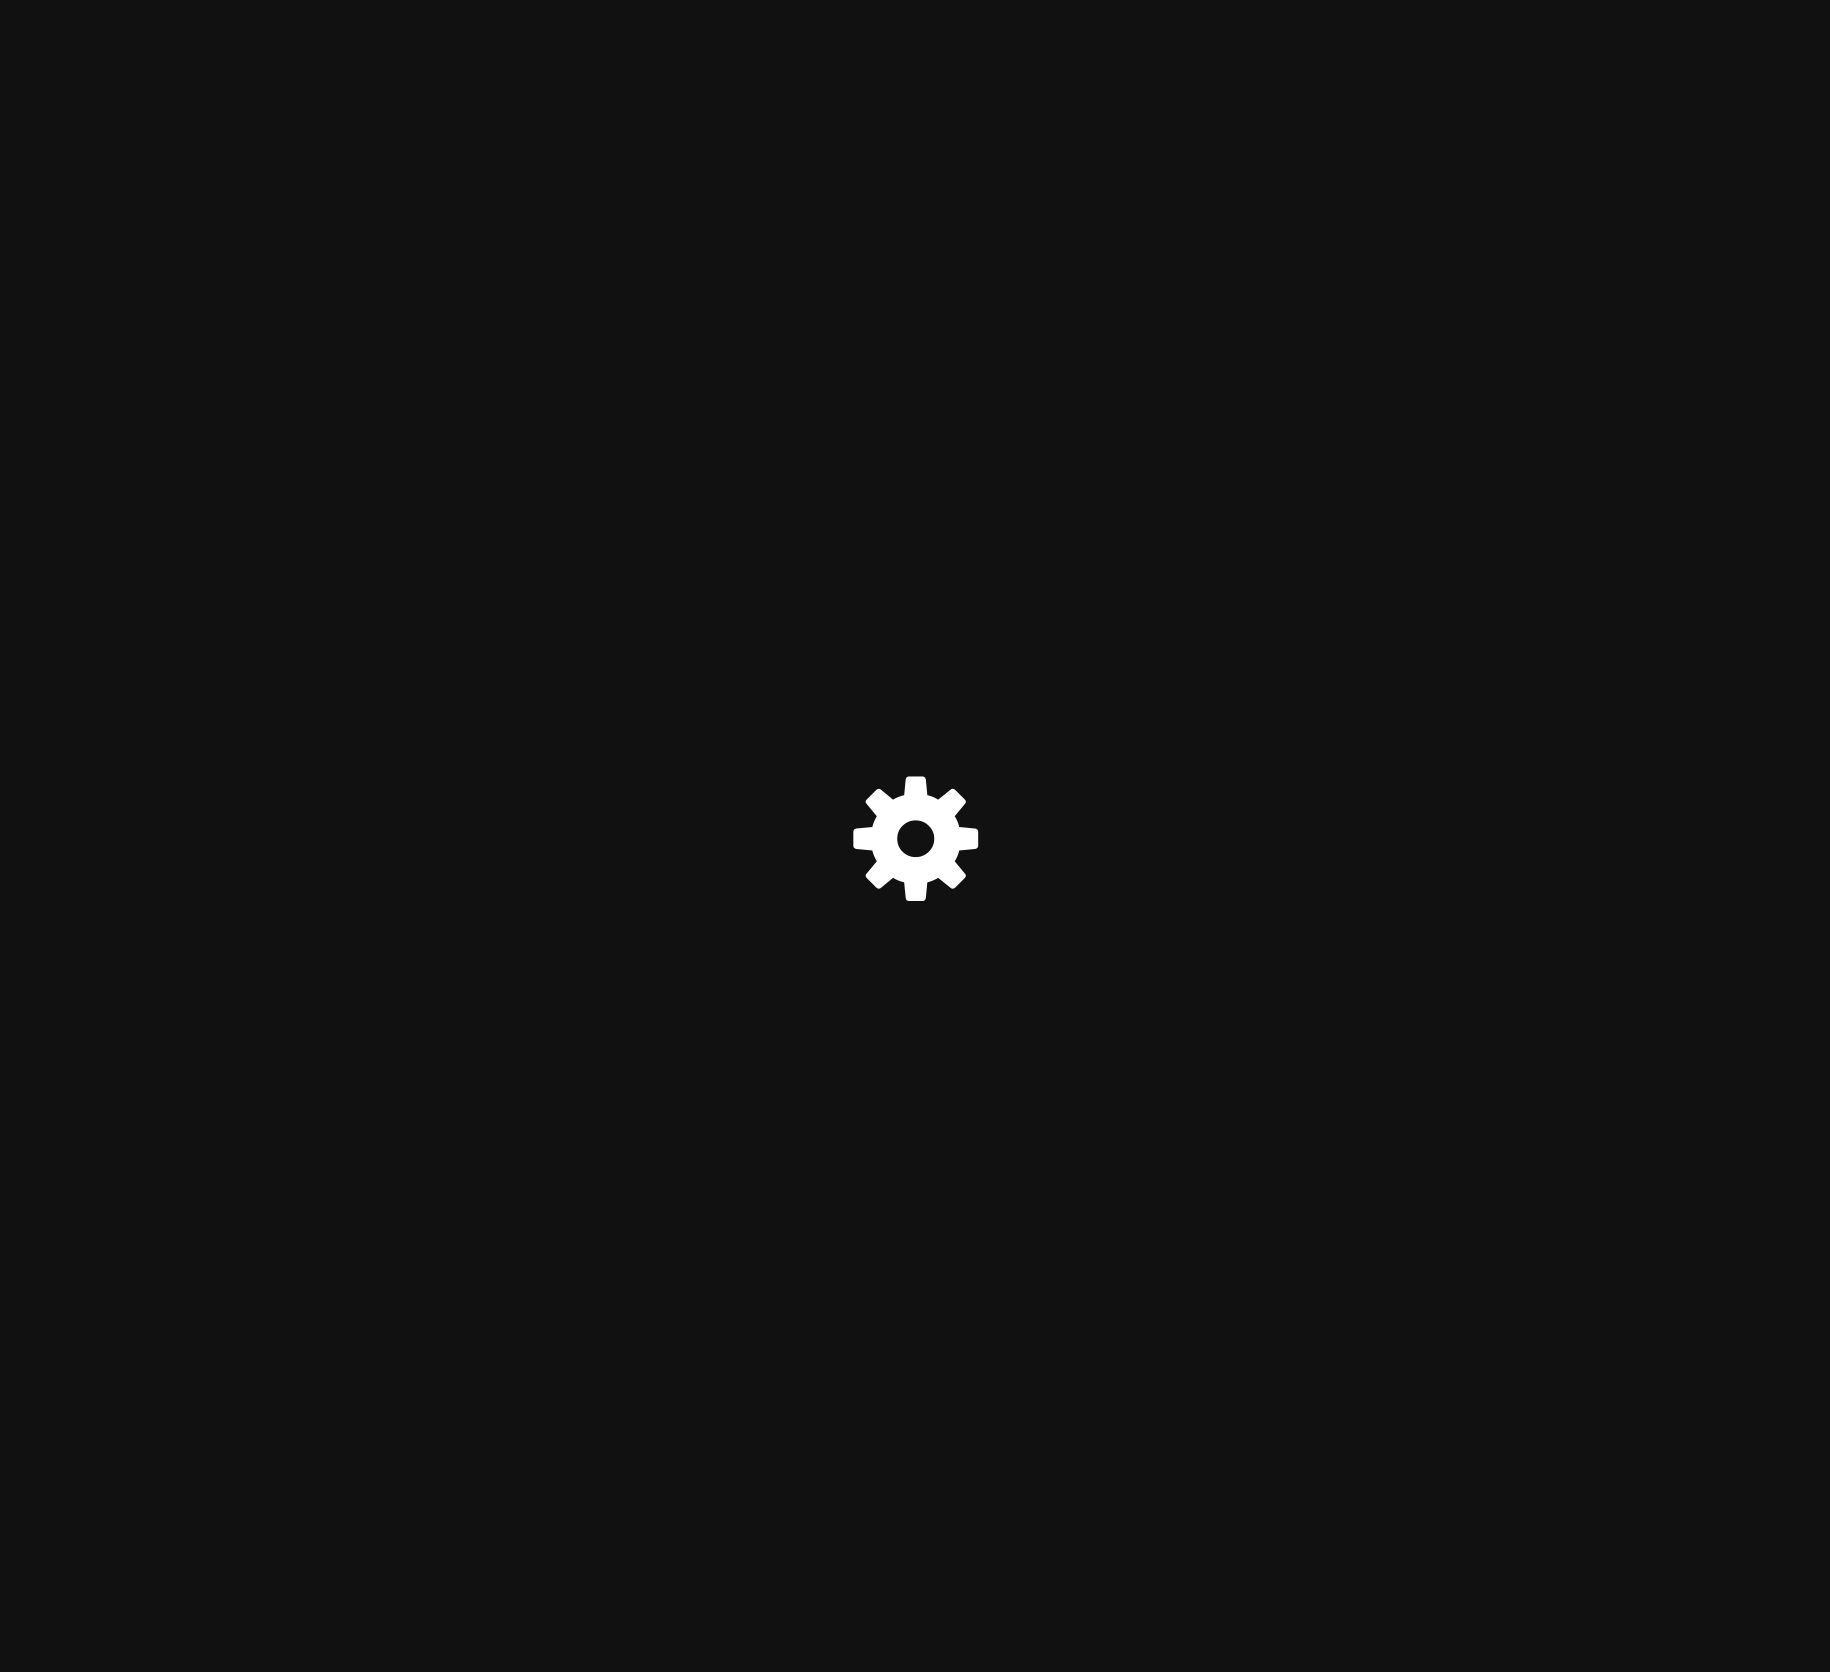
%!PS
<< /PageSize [1830 1672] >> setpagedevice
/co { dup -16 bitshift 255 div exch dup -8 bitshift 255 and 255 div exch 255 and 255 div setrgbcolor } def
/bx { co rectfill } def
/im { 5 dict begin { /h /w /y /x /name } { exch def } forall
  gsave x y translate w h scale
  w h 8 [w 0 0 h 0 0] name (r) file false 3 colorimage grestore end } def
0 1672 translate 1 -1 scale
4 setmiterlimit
0 0 1830 1672 16#111111 bx
(media/1.raw) 853 776 126 125 im
showpage
